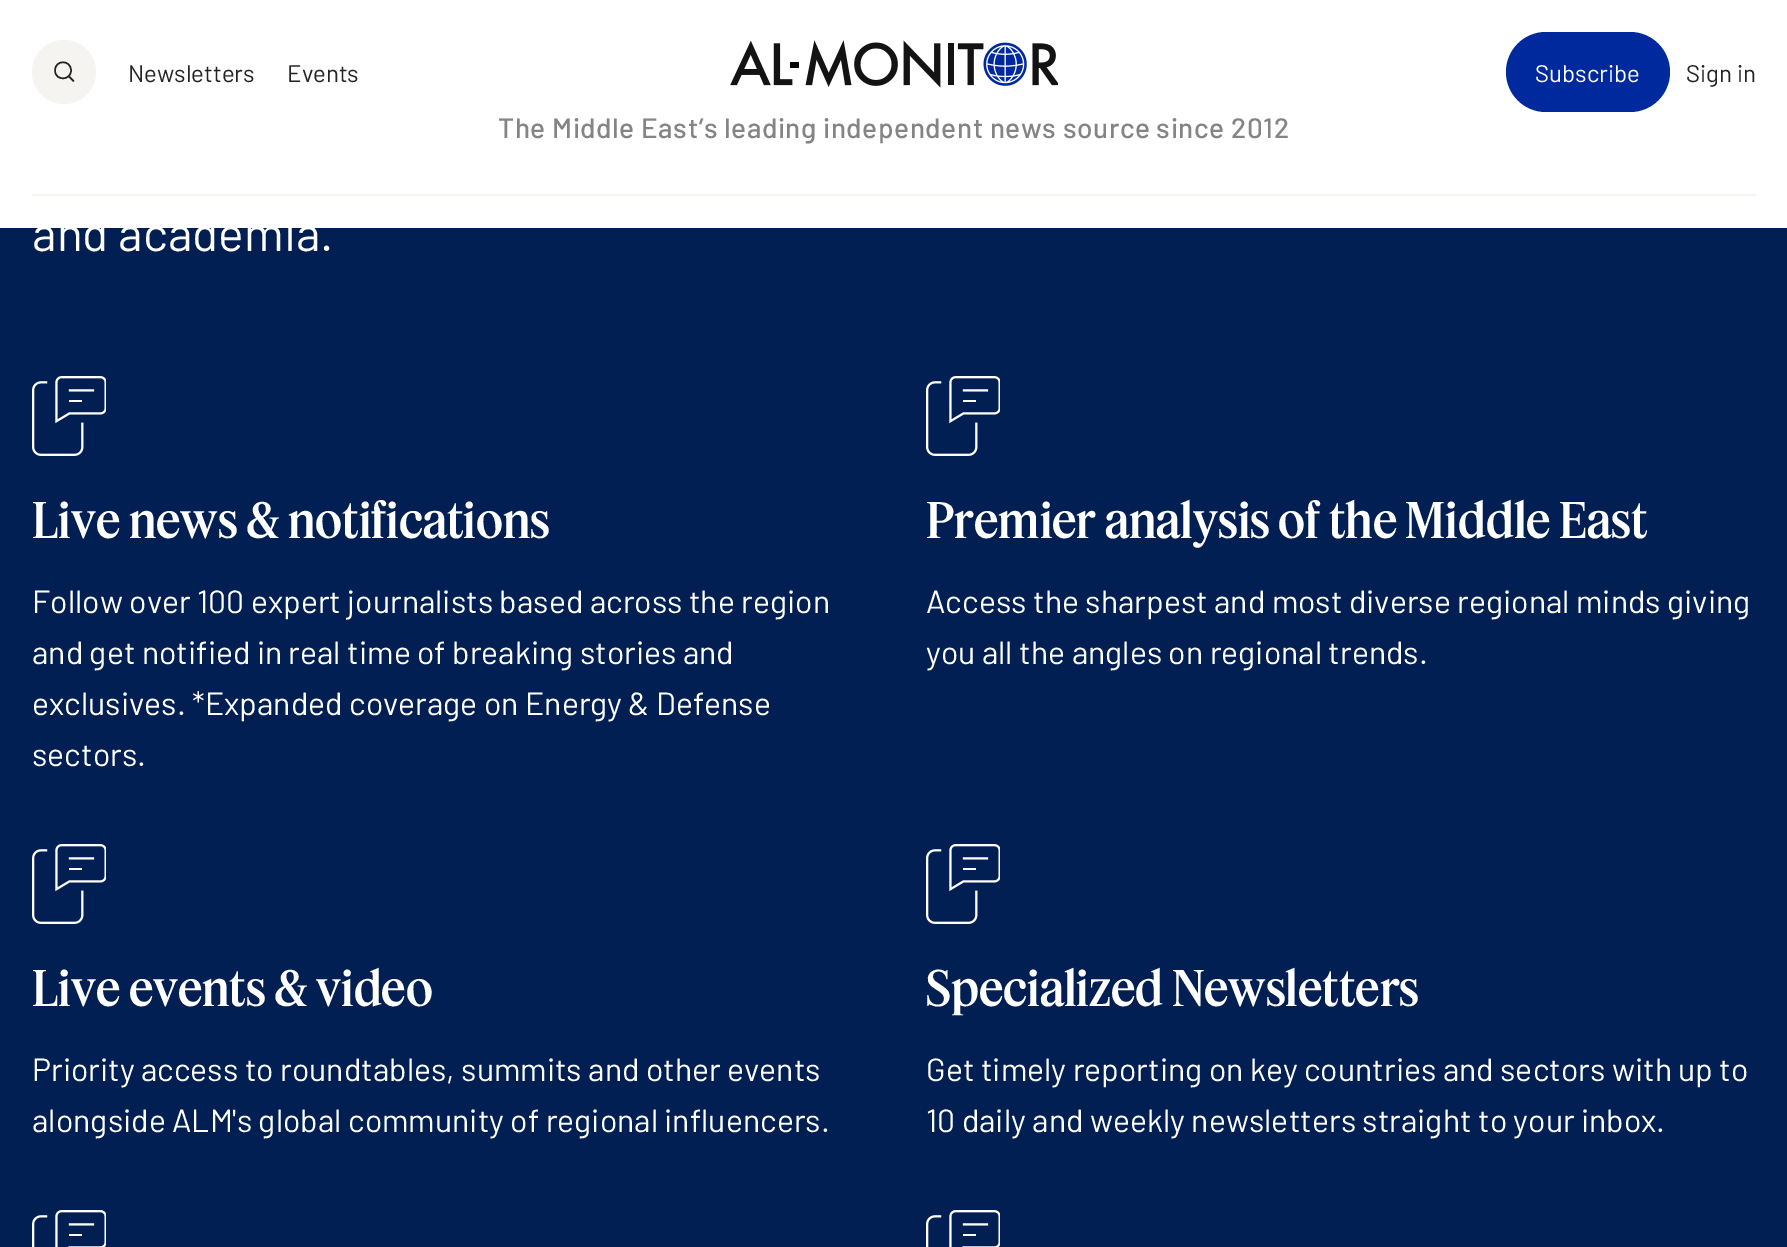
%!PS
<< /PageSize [1787 1247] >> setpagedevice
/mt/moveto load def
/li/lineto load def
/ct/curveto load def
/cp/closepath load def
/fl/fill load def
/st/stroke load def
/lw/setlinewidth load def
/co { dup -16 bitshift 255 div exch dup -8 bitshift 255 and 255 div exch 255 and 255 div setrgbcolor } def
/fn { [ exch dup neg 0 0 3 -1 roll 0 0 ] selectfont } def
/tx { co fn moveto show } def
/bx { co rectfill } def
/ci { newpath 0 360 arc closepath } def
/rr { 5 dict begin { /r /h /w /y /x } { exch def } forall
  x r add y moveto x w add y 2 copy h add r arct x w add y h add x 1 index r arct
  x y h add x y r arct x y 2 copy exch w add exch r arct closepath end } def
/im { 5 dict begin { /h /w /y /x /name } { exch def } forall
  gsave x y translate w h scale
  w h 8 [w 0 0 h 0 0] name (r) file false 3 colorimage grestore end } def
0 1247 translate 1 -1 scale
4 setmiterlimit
0 0 1787 1247 16#011F52 bx
0 0 1787 228 16#FFFFFF bx
16#F6F4F1 co
64 72 32 ci fl
16#242424 co
1.5 lw
1 setlinecap
1 setlinejoin
73.5 81 mt 68.5 76 li 55 70.5 mt 55 59.5 71 59.5 71 70.5 ct 71 81 55 81 55 70.5 ct cp st
(media/1.raw) 730 40 328 48 im
16#00299D co
1506 32 164 80 40 rr fl
32 194 1724 2 16#F6F4F1 bx
(media/2.raw) 32 376 74 80 im
(media/2.raw) 926 376 74 80 im
(media/2.raw) 32 844 74 80 im
(media/2.raw) 926 844 74 80 im
(media/3.raw) 32 1210 74 37 im
(media/3.raw) 926 1210 74 37 im
(Newsletters) 128 82 /Barlow-Regular 24 16#242424 tx
(Events) 287 82 /Barlow-Regular 24 16#242424 tx
(Subscribe) 1535 82 /Barlow-Regular 24 16#FFFFFF tx
(Sign in) 1686 82 /Barlow-Regular 24 16#242424 tx
/Barlow-Medium 28 fn
16#848484 co
498 138 mt .55 0 (The Middle Eastʼs leading independent news source since 2012) ashow
(and academia.) 32 251 /Barlow-Regular 48 16#FFFFFF tx
(Live news & notifications) 32 538 /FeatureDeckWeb-Medium 48 16#FFFFFF tx
(Follow over 100 expert journalists based across the region) 32 613 /Barlow-Regular 32 16#FFFFFF tx
(and get notified in real time of breaking stories and) 32 664 /Barlow-Regular 32 16#FFFFFF tx
(exclusives. *Expanded coverage on Energy & Defense) 32 715 /Barlow-Regular 32 16#FFFFFF tx
(sectors.) 32 766 /Barlow-Regular 32 16#FFFFFF tx
(Premier analysis of the Middle East) 926 538 /FeatureDeckWeb-Medium 48 16#FFFFFF tx
(Access the sharpest and most diverse regional minds giving) 926 613 /Barlow-Regular 32 16#FFFFFF tx
(you all the angles on regional trends.) 926 664 /Barlow-Regular 32 16#FFFFFF tx
(Live events & video) 32 1006 /FeatureDeckWeb-Medium 48 16#FFFFFF tx
(Priority access to roundtables, summits and other events) 32 1081 /Barlow-Regular 32 16#FFFFFF tx
(alongside ALM's global community of regional influencers.) 32 1132 /Barlow-Regular 32 16#FFFFFF tx
(Specialized Newsletters) 926 1006 /FeatureDeckWeb-Medium 48 16#FFFFFF tx
(Get timely reporting on key countries and sectors with up to) 926 1081 /Barlow-Regular 32 16#FFFFFF tx
(10 daily and weekly newsletters straight to your inbox.) 926 1132 /Barlow-Regular 32 16#FFFFFF tx
showpage
